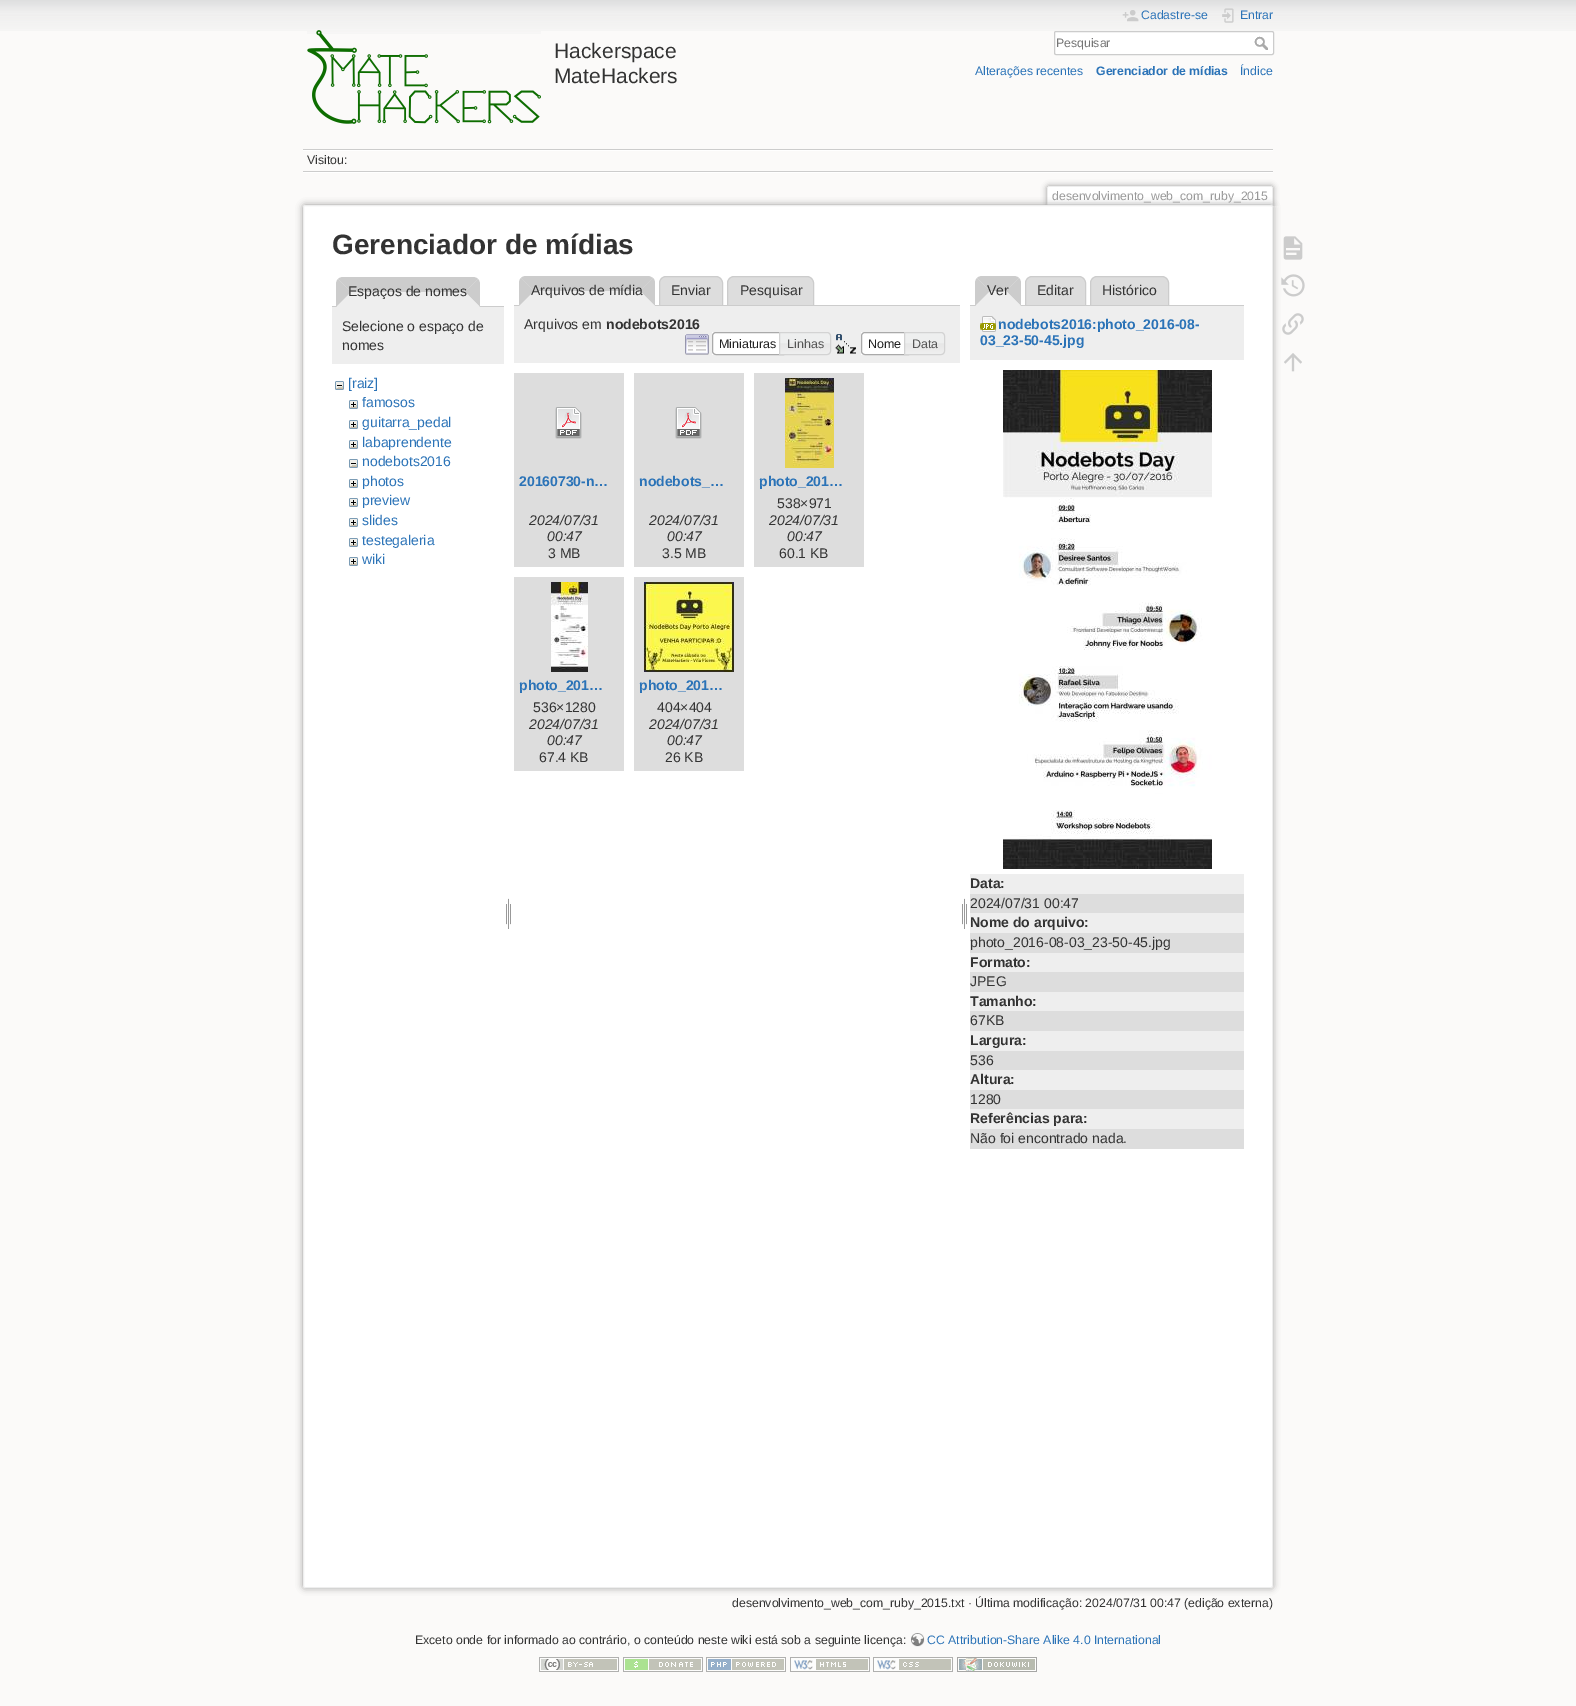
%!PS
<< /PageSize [1576 1706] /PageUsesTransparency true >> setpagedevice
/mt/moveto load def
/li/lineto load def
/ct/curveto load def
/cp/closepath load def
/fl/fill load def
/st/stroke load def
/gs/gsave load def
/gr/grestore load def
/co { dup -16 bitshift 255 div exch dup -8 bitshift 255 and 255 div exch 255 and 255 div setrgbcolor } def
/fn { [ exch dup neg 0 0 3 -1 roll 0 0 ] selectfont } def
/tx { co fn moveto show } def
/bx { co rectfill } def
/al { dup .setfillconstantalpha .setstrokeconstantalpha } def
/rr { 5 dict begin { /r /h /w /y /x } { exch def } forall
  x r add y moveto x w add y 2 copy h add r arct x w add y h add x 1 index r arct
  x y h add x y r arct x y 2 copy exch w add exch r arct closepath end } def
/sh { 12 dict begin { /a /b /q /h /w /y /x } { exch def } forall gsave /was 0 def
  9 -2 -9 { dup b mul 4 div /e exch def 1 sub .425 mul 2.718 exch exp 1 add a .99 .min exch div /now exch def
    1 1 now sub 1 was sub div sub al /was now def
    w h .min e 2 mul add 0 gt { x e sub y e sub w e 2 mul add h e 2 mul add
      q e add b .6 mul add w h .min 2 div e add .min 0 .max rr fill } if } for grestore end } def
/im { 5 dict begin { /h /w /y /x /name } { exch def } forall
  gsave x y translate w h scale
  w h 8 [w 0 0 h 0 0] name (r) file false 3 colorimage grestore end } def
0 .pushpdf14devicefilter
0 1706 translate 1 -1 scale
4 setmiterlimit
0 0 1576 1706 16#FBFAF9 bx
(media/1.raw) 0 0 1576 31 im
(media/2.raw) 307 30 234 94 im
(media/3.raw) 1122 10 17 12 im
(media/4.raw) 1222 8 12 15 im
16#FFFFFF co
1054.5 31.5 219 23 1.5 rr gs fl gr
16#CCCCCC co
st
(media/5.raw) 1254 36 14 14 im
303 149 970 1 16#CCCCCC bx
303 172 970 1 16#FFFFFF bx
303 150 970 1 16#FFFFFF bx
303 171 970 1 16#CCCCCC bx
gs
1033 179 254 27 rectclip
16#999999 co
1047 186 226 20 2 3 1 sh
gr
16#FFFFFF co
1049 187 mt 1271 187 li 1271.5 187 1272 187.5 1272 188 ct 1272 206 li 1048 206 li 1048 188 li 1048 187.5 1048.5 187 1049 187 ct cp fl
1048 186 224 1 16#EEEEEE bx
1272 187 1 19 16#EEEEEE bx
1047 187 1 19 16#EEEEEE bx
16#999999 co
303 205 970 1383 2 3.5 1 sh
16#FFFFFF co
303.5 205.5 969 1382 1.5 rr gs fl gr
16#EEEEEE co
st
16#CCCCCC co
343 277 mt 473 277 li 475 277 477 278 478 279 ct 465 292 li 351 292 li 338 279 li 339 278 341 277 343 277 ct cp fl
332 306 172 1 16#CCCCCC bx
478 279 mt 465 292 li 480 307 li 480 284 li 480 282 479 280 478 279 ct cp fl
16#EEEEEE co
480 307 mt 465 292 li 351 292 li 336 307 li cp fl
16#CCCCCC co
336 307 mt 336 284 li 336 282 337 280 338 279 ct 351 292 li cp fl
332 307 172 57 16#EEEEEE bx
(media/6.raw) 335 381 9 9 im
(media/7.raw) 349 400 9 9 im
(media/7.raw) 349 420 9 9 im
(media/7.raw) 349 440 9 9 im
(media/6.raw) 349 459 9 9 im
(media/7.raw) 349 479 9 9 im
(media/7.raw) 349 498 9 9 im
(media/7.raw) 349 518 9 9 im
(media/7.raw) 349 538 9 9 im
(media/7.raw) 349 557 9 9 im
(media/8.raw) 506 898 5 31 im
16#DDDDDD co
666 276.5 mt 716 276.5 li 719.5 276.5 722.5 279.5 722.5 283 ct 722.5 305.5 li 659.5 305.5 li 659.5 283 li 659.5 279.5 662.5 276.5 666 276.5 ct cp gs fl gr
16#CCCCCC co
st
16#DDDDDD co
734 276.5 mt 807 276.5 li 810.5 276.5 813.5 279.5 813.5 283 ct 813.5 305.5 li 727.5 305.5 li 727.5 283 li 727.5 279.5 730.5 276.5 734 276.5 ct cp gs fl gr
16#CCCCCC co
st
514 305 446 1 16#CCCCCC bx
16#EEEEEE co
526 276 mt 648 276 li 652 276 655 279 655 283 ct 655 306 li 519 306 li 519 283 li 519 279 522 276 526 276 ct cp fl
16#CCCCCC co
526 276 mt 649 276 li 653 278 li 640 291 li 534 291 li 521 278 li 522 277 524 276 526 276 ct cp fl
653 278 mt 640 291 li 655 306 li 655 283 li 655 281 654 279 653 278 ct cp fl
16#EEEEEE co
655 306 mt 640 291 li 534 291 li 519 306 li cp fl
16#CCCCCC co
519 306 mt 519 283 li 519 281 520 279 521 278 ct 534 291 li cp fl
514 306 446 57 16#EEEEEE bx
(media/9.raw) 685 334 24 21 im
712 332 67 23 16#FFFFFF bx
16#AAAAAA co
716 332.5 mt 783.5 332.5 li 783.5 354.5 li 716 354.5 li 714 354.5 712.5 353 712.5 351 ct 712.5 336 li 712.5 334 714 332.5 716 332.5 ct cp st
(media/10.raw) 780 332 51 23 im
16#D3D3D3 co
779.5 332.5 mt 827 332.5 li 829 332.5 830.5 334 830.5 336 ct 830.5 351 li 830.5 353 829 354.5 827 354.5 ct 779.5 354.5 li cp st
(media/11.raw) 835 334 21 20 im
861 332 43 23 16#FFFFFF bx
16#AAAAAA co
865 332.5 mt 908.5 332.5 li 908.5 354.5 li 865 354.5 li 863 354.5 861.5 353 861.5 351 ct 861.5 336 li 861.5 334 863 332.5 865 332.5 ct cp st
(media/12.raw) 905 332 40 23 im
16#D3D3D3 co
904.5 332.5 mt 941 332.5 li 943 332.5 944.5 334 944.5 336 ct 944.5 351 li 944.5 353 943 354.5 941 354.5 ct 904.5 354.5 li cp st
514 373 110 194 16#DDDDDD bx
(media/13.raw) 555 407 27 32 im
634 373 110 194 16#DDDDDD bx
(media/13.raw) 675 407 27 32 im
754 373 110 194 16#DDDDDD bx
(media/14.raw) 785 378 49 90 im
514 577 110 194 16#DDDDDD bx
(media/15.raw) 551 582 37 90 im
634 577 110 194 16#DDDDDD bx
(media/16.raw) 644 582 90 90 im
(media/8.raw) 962 898 5 31 im
16#CCCCCC co
982 276 mt 1014 276 li 1016 276 1018 277 1019 278 ct 1006 291 li 990 291 li 977 278 li 978 277 980 276 982 276 ct cp fl
16#DDDDDD co
1032 276.5 mt 1079 276.5 li 1082.5 276.5 1085.5 279.5 1085.5 283 ct 1085.5 305.5 li 1025.5 305.5 li 1025.5 283 li 1025.5 279.5 1028.5 276.5 1032 276.5 ct cp gs fl gr
16#CCCCCC co
st
16#DDDDDD co
1097 276.5 mt 1162 276.5 li 1165.5 276.5 1168.5 279.5 1168.5 283 ct 1168.5 305.5 li 1090.5 305.5 li 1090.5 283 li 1090.5 279.5 1093.5 276.5 1097 276.5 ct cp gs fl gr
16#CCCCCC co
st
970 305 274 1 16#CCCCCC bx
1019 278 mt 1006 291 li 1021 306 li 1021 283 li 1021 281 1020 279 1019 278 ct cp fl
16#EEEEEE co
1021 306 mt 1006 291 li 990 291 li 975 306 li cp fl
16#CCCCCC co
975 306 mt 975 283 li 975 281 976 279 977 278 ct 990 291 li cp fl
970 306 274 54 16#EEEEEE bx
(media/17.raw) 980 316 16 16 im
(media/18.raw) 1003 370 209 499 im
970 874 274 20 16#EEEEEE bx
970 894 274 19 16#DDDDDD bx
970 913 274 20 16#EEEEEE bx
970 933 274 20 16#DDDDDD bx
970 953 274 19 16#EEEEEE bx
970 972 274 20 16#DDDDDD bx
970 992 274 19 16#EEEEEE bx
970 1011 274 20 16#DDDDDD bx
970 1031 274 20 16#EEEEEE bx
970 1051 274 19 16#DDDDDD bx
970 1070 274 20 16#EEEEEE bx
970 1090 274 19 16#DDDDDD bx
970 1109 274 20 16#EEEEEE bx
970 1129 274 20 16#DDDDDD bx
(media/19.raw) 1283 236 20 24 im
(media/20.raw) 1281 274 24 23 im
(media/21.raw) 1282 313 22 22 im
(media/22.raw) 1284 353 18 19 im
(media/23.raw) 911 1633 14 14 im
(media/24.raw) 539 1657 80 15 im
(media/25.raw) 623 1657 80 15 im
(media/26.raw) 706 1657 80 15 im
(media/27.raw) 790 1657 80 15 im
(media/28.raw) 873 1657 80 15 im
(media/29.raw) 957 1657 80 15 im
(Hackerspace) 554 58 /LiberationSans-Regular 21 16#333333 tx
(MateHackers) 554 83 /LiberationSans-Regular 21 16#333333 tx
(Cadastre-se) 1141 19 /LiberationSans-Regular 12.25 16#2B73B7 tx
(Entrar) 1240 19 /LiberationSans-Regular 12.25 16#2B73B7 tx
(Pesquisar) 1056 47 /LiberationSans-Regular 12.25 16#757575 tx
(Alterações recentes) 975 75 /LiberationSans-Regular 12.25 16#2B73B7 tx
(Gerenciador de mídias) 1096 75 /LiberationSans-Bold 12.25 16#2B73B7 tx
(Índice) 1240 75 /LiberationSans-Regular 12.25 16#2B73B7 tx
(Visitou:) 307 164 /LiberationSans-Regular 12.25 16#333333 tx
(desenvolvimento_web_com_ruby_2015) 1052 200 /LiberationSans-Regular 12.25 16#999999 tx
(Gerenciador de mídias) 332 254 /LiberationSans-Bold 28 16#333333 tx
(Espaços de nomes) 348 296 /LiberationSans-Regular 14 16#333333 tx
(Selecione o espaço de) 342 331 /LiberationSans-Regular 14 16#333333 tx
(nomes) 342 350 /LiberationSans-Regular 14 16#333333 tx
([raiz]) 348 388 /LiberationSans-Regular 14 16#2B73B7 tx
(famosos) 362 407 /LiberationSans-Regular 14 16#2B73B7 tx
(guitarra_pedal) 362 427 /LiberationSans-Regular 14 16#2B73B7 tx
(labaprendente) 362 447 /LiberationSans-Regular 14 16#2B73B7 tx
(nodebots2016) 362 466 /LiberationSans-Regular 14 16#2B73B7 tx
(photos) 362 486 /LiberationSans-Regular 14 16#2B73B7 tx
(preview) 362 505 /LiberationSans-Regular 14 16#2B73B7 tx
(slides) 362 525 /LiberationSans-Regular 14 16#2B73B7 tx
(testegaleria) 362 545 /LiberationSans-Regular 14 16#2B73B7 tx
(wiki) 362 564 /LiberationSans-Regular 14 16#2B73B7 tx
(Arquivos de mídia) 531 295 /LiberationSans-Regular 14 16#333333 tx
(Enviar) 671 295 /LiberationSans-Regular 14 16#333333 tx
(Pesquisar) 740 295 /LiberationSans-Regular 14 16#333333 tx
(Arquivos em) 524 329 /LiberationSans-Regular 14 16#333333 tx
(nodebots2016) 606 329 /LiberationSans-Bold 14 16#333333 tx
(Miniaturas) 719 348 /LiberationSans-Regular 12.5 16#212121 tx
(Linhas) 787 348 /LiberationSans-Regular 12.5 16#555555 tx
(Nome) 868 348 /LiberationSans-Regular 12.5 16#212121 tx
(Data) 912 348 /LiberationSans-Regular 12.5 16#555555 tx
(20160730-n…) 519 486 /LiberationSans-Bold 14 16#2B73B7 tx
(2024/07/31) 529 525 /LiberationSans-Italic 14 16#333333 tx
(00:47) 547 541 /LiberationSans-Italic 14 16#333333 tx
(3 MB) 548 558 /LiberationSans-Regular 14 16#333333 tx
(nodebots_…) 639 486 /LiberationSans-Bold 14 16#2B73B7 tx
(2024/07/31) 649 525 /LiberationSans-Italic 14 16#333333 tx
(00:47) 667 541 /LiberationSans-Italic 14 16#333333 tx
(3.5 MB) 662 558 /LiberationSans-Regular 14 16#333333 tx
(photo_201…) 759 486 /LiberationSans-Bold 14 16#2B73B7 tx
(538×971) 777 508 /LiberationSans-Regular 14 16#333333 tx
(2024/07/31) 769 525 /LiberationSans-Italic 14 16#333333 tx
(00:47) 787 541 /LiberationSans-Italic 14 16#333333 tx
(60.1 KB) 779 558 /LiberationSans-Regular 14 16#333333 tx
(photo_201…) 519 690 /LiberationSans-Bold 14 16#2B73B7 tx
(536×1280) 533 712 /LiberationSans-Regular 14 16#333333 tx
(2024/07/31) 529 729 /LiberationSans-Italic 14 16#333333 tx
(00:47) 547 745 /LiberationSans-Italic 14 16#333333 tx
(67.4 KB) 539 762 /LiberationSans-Regular 14 16#333333 tx
(photo_201…) 639 690 /LiberationSans-Bold 14 16#2B73B7 tx
(404×404) 657 712 /LiberationSans-Regular 14 16#333333 tx
(2024/07/31) 649 729 /LiberationSans-Italic 14 16#333333 tx
(00:47) 667 745 /LiberationSans-Italic 14 16#333333 tx
(26 KB) 665 762 /LiberationSans-Regular 14 16#333333 tx
(Ver) 987 295 /LiberationSans-Regular 14 16#333333 tx
(Editar) 1037 295 /LiberationSans-Regular 14 16#333333 tx
(Histórico) 1102 295 /LiberationSans-Regular 14 16#333333 tx
(nodebots2016:photo_2016-08-) 998 329 /LiberationSans-Bold 14 16#2B73B7 tx
(03_23-50-45.jpg) 980 345 /LiberationSans-Bold 14 16#2B73B7 tx
(Data:) 970 888 /LiberationSans-Bold 14 16#333333 tx
(2024/07/31 00:47) 970 908 /LiberationSans-Regular 14 16#333333 tx
(Nome do arquivo:) 970 927 /LiberationSans-Bold 14 16#333333 tx
(photo_2016-08-03_23-50-45.jpg) 970 947 /LiberationSans-Regular 14 16#333333 tx
(Formato:) 970 967 /LiberationSans-Bold 14 16#333333 tx
(JPEG) 970 986 /LiberationSans-Regular 14 16#333333 tx
(Tamanho:) 970 1006 /LiberationSans-Bold 14 16#333333 tx
(67KB) 970 1025 /LiberationSans-Regular 14 16#333333 tx
(Largura:) 970 1045 /LiberationSans-Bold 14 16#333333 tx
(536) 970 1065 /LiberationSans-Regular 14 16#333333 tx
(Altura:) 970 1084 /LiberationSans-Bold 14 16#333333 tx
(1280) 970 1104 /LiberationSans-Regular 14 16#333333 tx
(Referências para:) 970 1123 /LiberationSans-Bold 14 16#333333 tx
(Não foi encontrado nada.) 970 1143 /LiberationSans-Regular 14 16#333333 tx
(desenvolvimento_web_com_ruby_2015.txt · Última modificação: 2024/07/31 00:47 \(edição externa\)) 732 1607 /LiberationSans-Regular 12.25 16#333333 tx
(Exceto onde for informado ao contrário, o conteúdo neste wiki está sob a seguinte licença:) 415 1644 /LiberationSans-Regular 12.25 16#333333 tx
(CC Attribution-Share Alike 4.0 International) 927 1644 /LiberationSans-Regular 12.25 16#2B73B7 tx
.poppdf14devicefilter showpage
